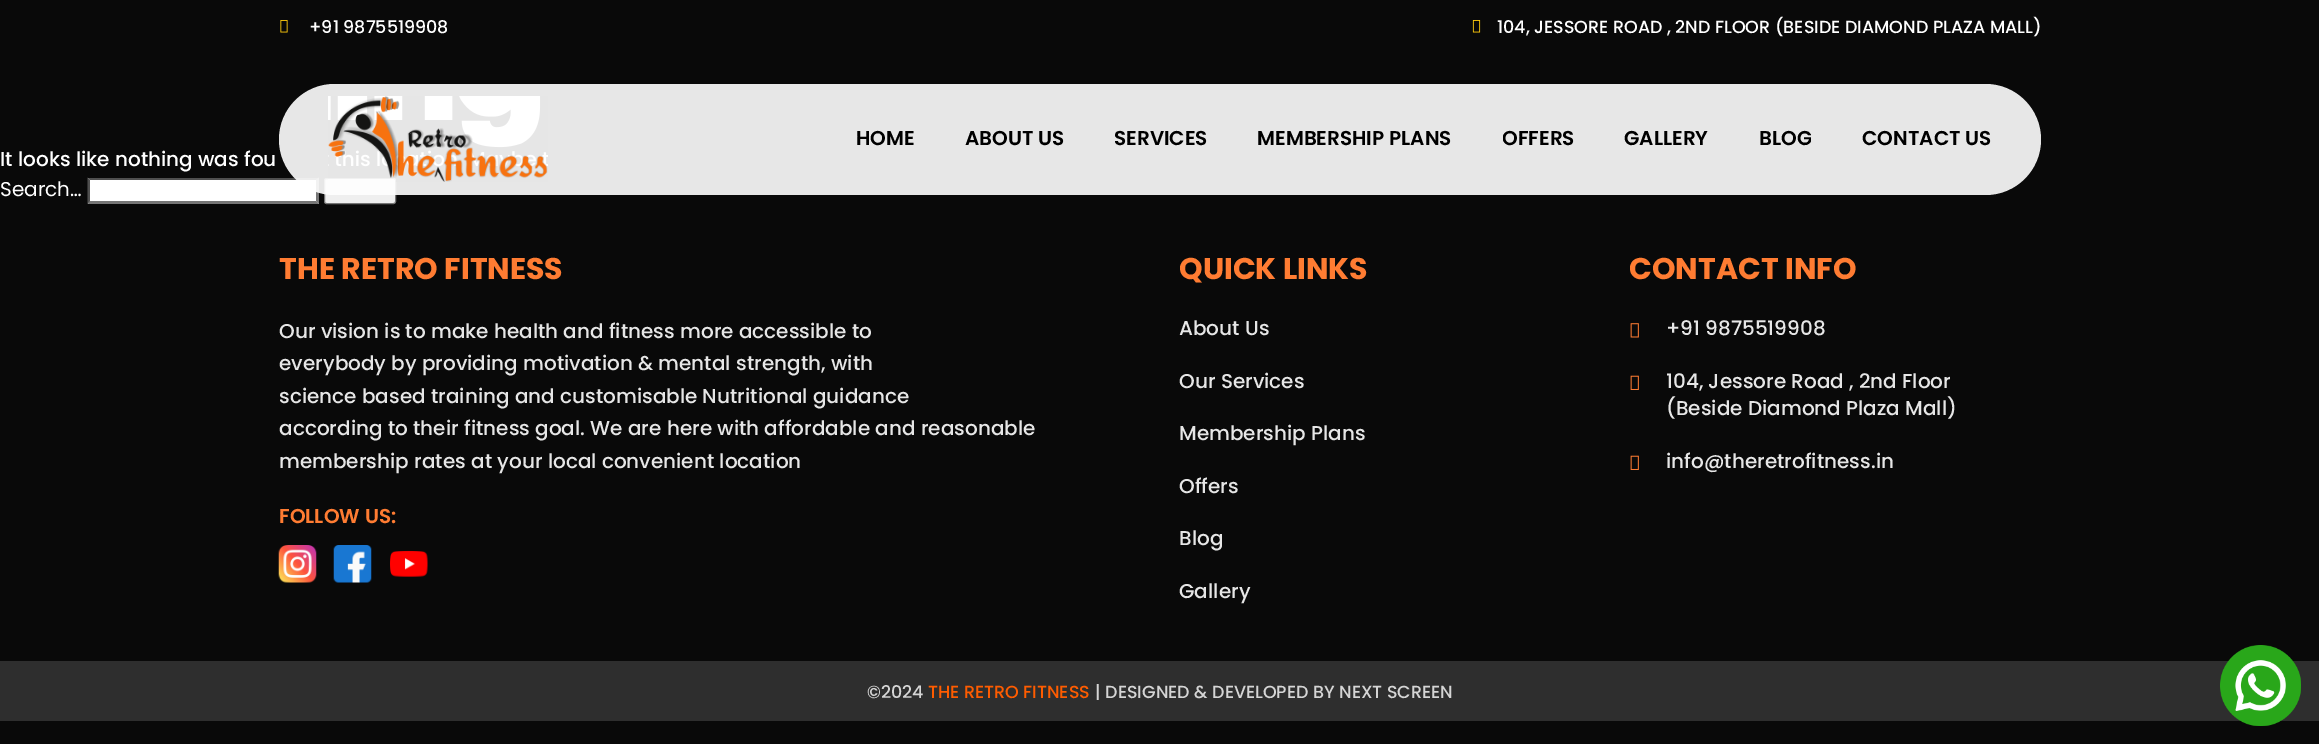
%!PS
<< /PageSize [2319 744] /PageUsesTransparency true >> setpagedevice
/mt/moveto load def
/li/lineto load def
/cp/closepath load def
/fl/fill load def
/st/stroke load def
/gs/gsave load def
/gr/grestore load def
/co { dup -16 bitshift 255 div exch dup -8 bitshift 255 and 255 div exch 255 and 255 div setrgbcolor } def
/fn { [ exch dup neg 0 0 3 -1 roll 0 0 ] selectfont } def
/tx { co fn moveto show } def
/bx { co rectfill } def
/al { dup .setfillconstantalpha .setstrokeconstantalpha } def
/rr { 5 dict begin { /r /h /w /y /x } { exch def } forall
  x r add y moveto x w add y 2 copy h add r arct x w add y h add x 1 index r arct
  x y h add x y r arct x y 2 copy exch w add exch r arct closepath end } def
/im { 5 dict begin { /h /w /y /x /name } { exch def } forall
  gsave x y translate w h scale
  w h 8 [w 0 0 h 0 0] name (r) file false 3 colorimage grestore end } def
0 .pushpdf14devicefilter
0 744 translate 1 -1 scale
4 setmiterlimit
0 0 2319 744 16#090909 bx
(media/1.raw) 280 20 8 13 im
(media/2.raw) 1472 20 9 13 im
88 178 231 26 16#FFFFFF bx
16#4F4F4F co
88 178 mt 319 178 li 316 180 li 90 180 li cp fl
16#767676 co
319 177.5 mt 319 204 li 316 201 li 316 180 li cp fl
16#EFEFEF co
324.5 178.5 71 25 2 rr gs fl gr
16#767676 co
st
0.9 al
16#FFFFFF co
279 84 1762 111 55.5 rr fl
1 al
(media/3.raw) 328 96 220 86 im
16#767676 co
319 204 mt 88 204 li 90 201 li 316 201 li cp fl
16#4F4F4F co
87.5 204 mt 87.5 177.5 li 90 180 li 90 201 li cp fl
(media/4.raw) 278 545 39 38 im
(media/5.raw) 333 545 39 38 im
(media/6.raw) 390 550 38 27 im
(media/7.raw) 1630 323 9 15 im
(media/8.raw) 1630 375 9 15 im
(media/8.raw) 1630 455 9 15 im
0 661 2319 60 16#2E2E2E bx
(media/9.raw) 2220 645 81 81 im
(+91 9875519908) 309 33 /Poppins-Medium 17.5 16#FFFFFF tx
(104, JESSORE ROAD , 2ND FLOOR \(BESIDE DIAMOND PLAZA MALL\)) 1497 33 /Poppins-Medium 17.5 16#FFFFFF tx
(HOME) 856 145 /Poppins-SemiBold 20 16#000000 tx
(ABOUT US) 965 145 /Poppins-SemiBold 20 16#000000 tx
(SERVICES) 1114 145 /Poppins-SemiBold 20 16#000000 tx
(MEMBERSHIP PLANS) 1257 145 /Poppins-SemiBold 20 16#000000 tx
gs
1503 113 72 46 rectclip
(OFFERS) 1502 145 /Poppins-SemiBold 20 16#000000 tx
gr
(GALLERY) 1624 145 /Poppins-SemiBold 20 16#000000 tx
gs
1759 113 52 46 rectclip
(BLOG) 1759 145 /Poppins-SemiBold 20 16#000000 tx
gr
(CONTACT US) 1862 145 /Poppins-SemiBold 20 16#000000 tx
(It looks like nothing was fou) 0 166 /Poppins-Medium 20 16#FFFFFF tx
(Search…) 0 196 /Poppins-Regular 20 16#FFFFFF tx
(THE RETRO FITNESS) 279 279 /Poppins-Bold 30 16#FF7C32 tx
(Our vision is to make health and fitness more accessible to) 279 338 /Poppins-Medium 20 16#E6E6E6 tx
(everybody by providing motivation & mental strength, with) 279 370 /Poppins-Medium 20 16#E6E6E6 tx
(science based training and customisable Nutritional guidance) 279 403 /Poppins-Medium 20 16#E6E6E6 tx
(according to their fitness goal. We are here with affordable and reasonable) 279 435 /Poppins-Medium 20 16#E6E6E6 tx
(membership rates at your local convenient location) 279 468 /Poppins-Medium 20 16#E6E6E6 tx
(FOLLOW US:) 279 523 /Poppins-SemiBold 20 16#FF7C32 tx
(QUICK LINKS) 1179 279 /Poppins-Bold 30 16#FF7C32 tx
(About Us) 1179 335 /Poppins-Medium 20 16#E6E6E6 tx
(Our Services) 1179 388 /Poppins-Medium 20 16#E6E6E6 tx
(Membership Plans) 1179 440 /Poppins-Medium 20 16#E6E6E6 tx
(Offers) 1179 493 /Poppins-Medium 20 16#E6E6E6 tx
(Blog) 1179 545 /Poppins-Medium 20 16#E6E6E6 tx
(Gallery) 1179 598 /Poppins-Medium 20 16#E6E6E6 tx
(CONTACT INFO) 1629 279 /Poppins-Bold 30 16#FF7C32 tx
(+91 9875519908) 1666 335 /Poppins-Medium 20 16#E6E6E6 tx
(104, Jessore Road , 2nd Floor) 1666 388 /Poppins-Medium 20 16#E6E6E6 tx
(\(Beside Diamond Plaza Mall\)) 1666 415 /Poppins-Medium 20 16#E6E6E6 tx
(info@theretrofitness.in) 1666 468 /Poppins-Medium 20 16#E6E6E6 tx
(©2024) 867 698 /Poppins-Medium 17.5 16#D5D5D5 tx
(THE RETRO FITNESS) 928 698 /Poppins-Medium 17.5 16#FF5C00 tx
(| DESIGNED & DEVELOPED BY NEXT SCREEN) 1095 698 /Poppins-Medium 17.5 16#D5D5D5 tx
.poppdf14devicefilter showpage
